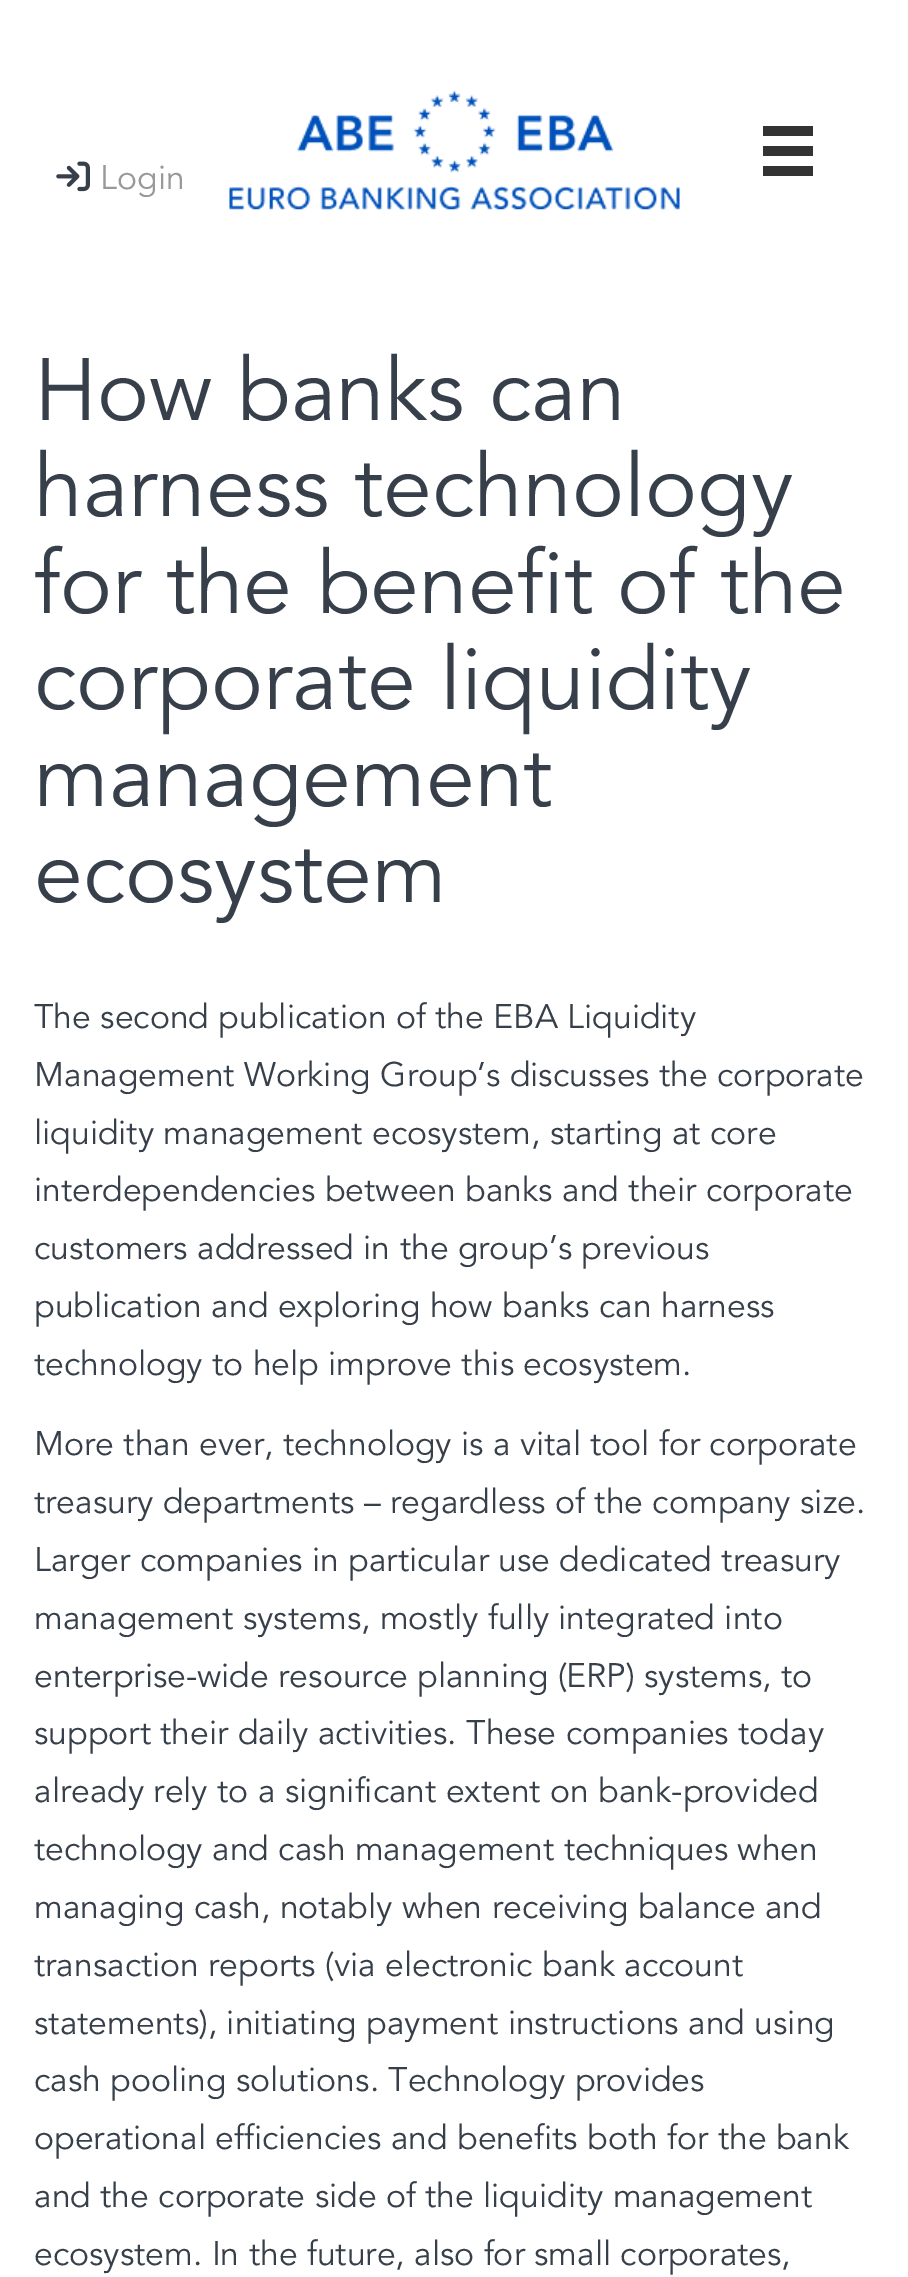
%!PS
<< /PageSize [908 2277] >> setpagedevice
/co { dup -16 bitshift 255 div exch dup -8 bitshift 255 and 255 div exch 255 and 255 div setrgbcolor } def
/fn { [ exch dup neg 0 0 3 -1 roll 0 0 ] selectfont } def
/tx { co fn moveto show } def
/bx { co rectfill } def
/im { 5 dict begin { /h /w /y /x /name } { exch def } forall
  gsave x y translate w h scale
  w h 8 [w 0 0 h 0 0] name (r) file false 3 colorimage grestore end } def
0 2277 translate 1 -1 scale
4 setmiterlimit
0 0 908 2277 16#FFFFFF bx
(media/1.raw) 229 90 451 120 im
763 126 50 10 16#333333 bx
763 146 50 10 16#333333 bx
763 166 50 10 16#333333 bx
(media/2.raw) 56 161 34 31 im
(Login) 100 189 /avenir-Regular 33.75 16#999999 tx
(How banks can) 34 420 /avenir-Regular 87.75 16#37404A tx
(harness technology) 34 516 /avenir-Regular 87.75 16#37404A tx
(for the benefit of the) 34 613 /avenir-Regular 87.75 16#37404A tx
(corporate liquidity) 34 709 /avenir-Regular 87.75 16#37404A tx
(management) 34 806 /avenir-Regular 87.75 16#37404A tx
(ecosystem) 34 902 /avenir-Regular 87.75 16#37404A tx
(The second publication of the EBA Liquidity) 34 1028 /avenir-Regular 33.75 16#37404A tx
(Management Working Group’s discusses the corporate) 34 1086 /avenir-Regular 33.75 16#37404A tx
(liquidity management ecosystem, starting at core) 34 1144 /avenir-Regular 33.75 16#37404A tx
(interdependencies between banks and their corporate) 34 1201 /avenir-Regular 33.75 16#37404A tx
(customers addressed in the group’s previous) 34 1259 /avenir-Regular 33.75 16#37404A tx
(publication and exploring how banks can harness) 34 1317 /avenir-Regular 33.75 16#37404A tx
(technology to help improve this ecosystem.) 34 1375 /avenir-Regular 33.75 16#37404A tx
(More than ever, technology is a vital tool for corporate) 34 1455 /avenir-Regular 33.75 16#37404A tx
(treasury departments – regardless of the company size.) 34 1513 /avenir-Regular 33.75 16#37404A tx
(Larger companies in particular use dedicated treasury) 34 1571 /avenir-Regular 33.75 16#37404A tx
(management systems, mostly fully integrated into) 34 1629 /avenir-Regular 33.75 16#37404A tx
(enterprise-wide resource planning \(ERP\) systems, to) 34 1687 /avenir-Regular 33.75 16#37404A tx
(support their daily activities. These companies today) 34 1744 /avenir-Regular 33.75 16#37404A tx
(already rely to a significant extent on bank-provided) 34 1802 /avenir-Regular 33.75 16#37404A tx
(technology and cash management techniques when) 34 1860 /avenir-Regular 33.75 16#37404A tx
(managing cash, notably when receiving balance and) 34 1918 /avenir-Regular 33.75 16#37404A tx
(transaction reports \(via electronic bank account) 34 1976 /avenir-Regular 33.75 16#37404A tx
(statements\), initiating payment instructions and using) 34 2034 /avenir-Regular 33.75 16#37404A tx
(cash pooling solutions. Technology provides) 34 2091 /avenir-Regular 33.75 16#37404A tx
(operational efficiencies and benefits both for the bank) 34 2149 /avenir-Regular 33.75 16#37404A tx
(and the corporate side of the liquidity management) 34 2207 /avenir-Regular 33.75 16#37404A tx
(ecosystem. In the future, also for small corporates,) 34 2265 /avenir-Regular 33.75 16#37404A tx
showpage
